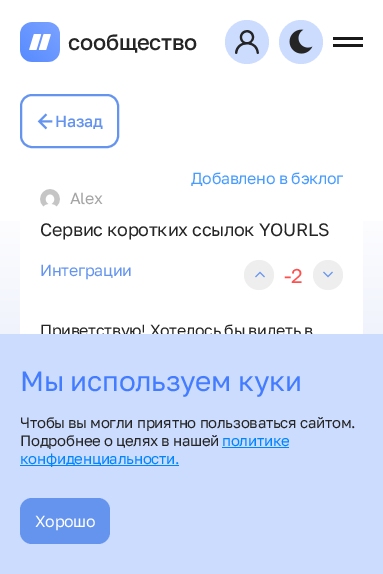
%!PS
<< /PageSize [383 574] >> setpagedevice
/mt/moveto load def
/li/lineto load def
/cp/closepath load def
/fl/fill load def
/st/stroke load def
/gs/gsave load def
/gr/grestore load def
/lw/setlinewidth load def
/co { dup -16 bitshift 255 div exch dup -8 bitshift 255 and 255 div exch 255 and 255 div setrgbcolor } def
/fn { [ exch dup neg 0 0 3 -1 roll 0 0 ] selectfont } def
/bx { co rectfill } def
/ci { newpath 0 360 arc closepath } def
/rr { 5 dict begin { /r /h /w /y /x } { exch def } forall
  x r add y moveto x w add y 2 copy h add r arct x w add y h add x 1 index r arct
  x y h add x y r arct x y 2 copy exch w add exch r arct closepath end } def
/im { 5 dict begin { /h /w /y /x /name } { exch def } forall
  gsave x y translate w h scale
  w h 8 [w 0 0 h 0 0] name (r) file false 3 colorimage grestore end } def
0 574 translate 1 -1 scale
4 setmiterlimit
0 0 383 574 16#FFFFFF bx
(media/1.raw) 20 22 40 40 im
16#CCDCFF co
247 42 22 ci fl
(media/2.raw) 235 30 24 24 im
301 42 22 ci fl
(media/3.raw) 289 29 24 25 im
333 37 30 3 16#191919 bx
333 44 30 3 16#191919 bx
16#6594EF co
2 lw
21 95 97 52 11 rr st
(media/4.raw) 37 113 16 17 im
gs 0 221 mt 383 221 li 383 334 li 0 334 li cp clip newpath
<< /ShadingType 2 /ColorSpace /DeviceRGB /Coords [191 0 192 350] /Extend [true true] /Function << /FunctionType 3 /Domain [0 1] /Functions [<< /FunctionType 2 /Domain [0 1] /C0 [1 1 1] /C1 [1 1 1] /N 1 >> << /FunctionType 2 /Domain [0 1] /C0 [1 1 1] /C1 [.933 .949 .988] /N 1 >>] /Bounds [.57] /Encode [0 1 0 1] >> >> shfill gr
16#FFFFFF co
20 168 343 300 10 rr fl
(media/5.raw) 40 189 20 18 im
16#EEEEEE co
259 275 15 ci fl
(media/6.raw) 255 271 10 7 im
328 275 15 ci fl
(media/7.raw) 323 271 10 7 im
/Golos-Medium 22 fn
16#252525 co
68 50 mt -.3 0 (сообщество) ashow
/Golos-Medium 16 fn
16#6594EF co
55 127 mt -.3 0 (Назад) ashow
/Golos-Regular 16 fn
16#489CFF co
191 184 mt -.3 0 (Добавлено в бэклог) ashow
16#A4A4A4 co
70 204 mt -.3 0 (Alex) ashow
/Golos-Regular 18 fn
16#252525 co
40 236 mt -.3 0 (Сервис коротких ссылок YOURLS) ashow
/Golos-Regular 16 fn
16#6594EF co
40 276 mt -.3 0 (Интеграции) ashow
/Golos-Regular 20 fn
16#FF5050 co
284 283 mt -.3 0 (-2) ashow
/Golos-Regular 16 fn
16#252525 co
40 336 mt -.3 0 (Приветствую! Хотелось бы видеть в) ashow
0 334 383 240 16#CCDCFF bx
/Golos-Regular 28 fn
16#437CFF co
20 391 mt -.3 0 (Мы используем куки) ashow
/Golos-Regular 15 fn
16#252525 co
20 428 mt -.3 0 (Чтобы вы могли приятно пользоваться сайтом.) ashow
20 446 mt -.3 0 (Подробнее о целях в нашей) ashow
16#0085FF co
222 446 mt -.3 0 (политике) ashow
222 447 67 1 16#0085FF bx
20 465 159 1 16#0085FF bx
20 464 mt -.3 0 (конфиденциальности.) ashow
16#6594EF co
20 498 90 46 12 rr fl
/Golos-Regular 16 fn
16#FFFFFF co
35 527 mt -.3 0 (Хорошо) ashow
showpage
